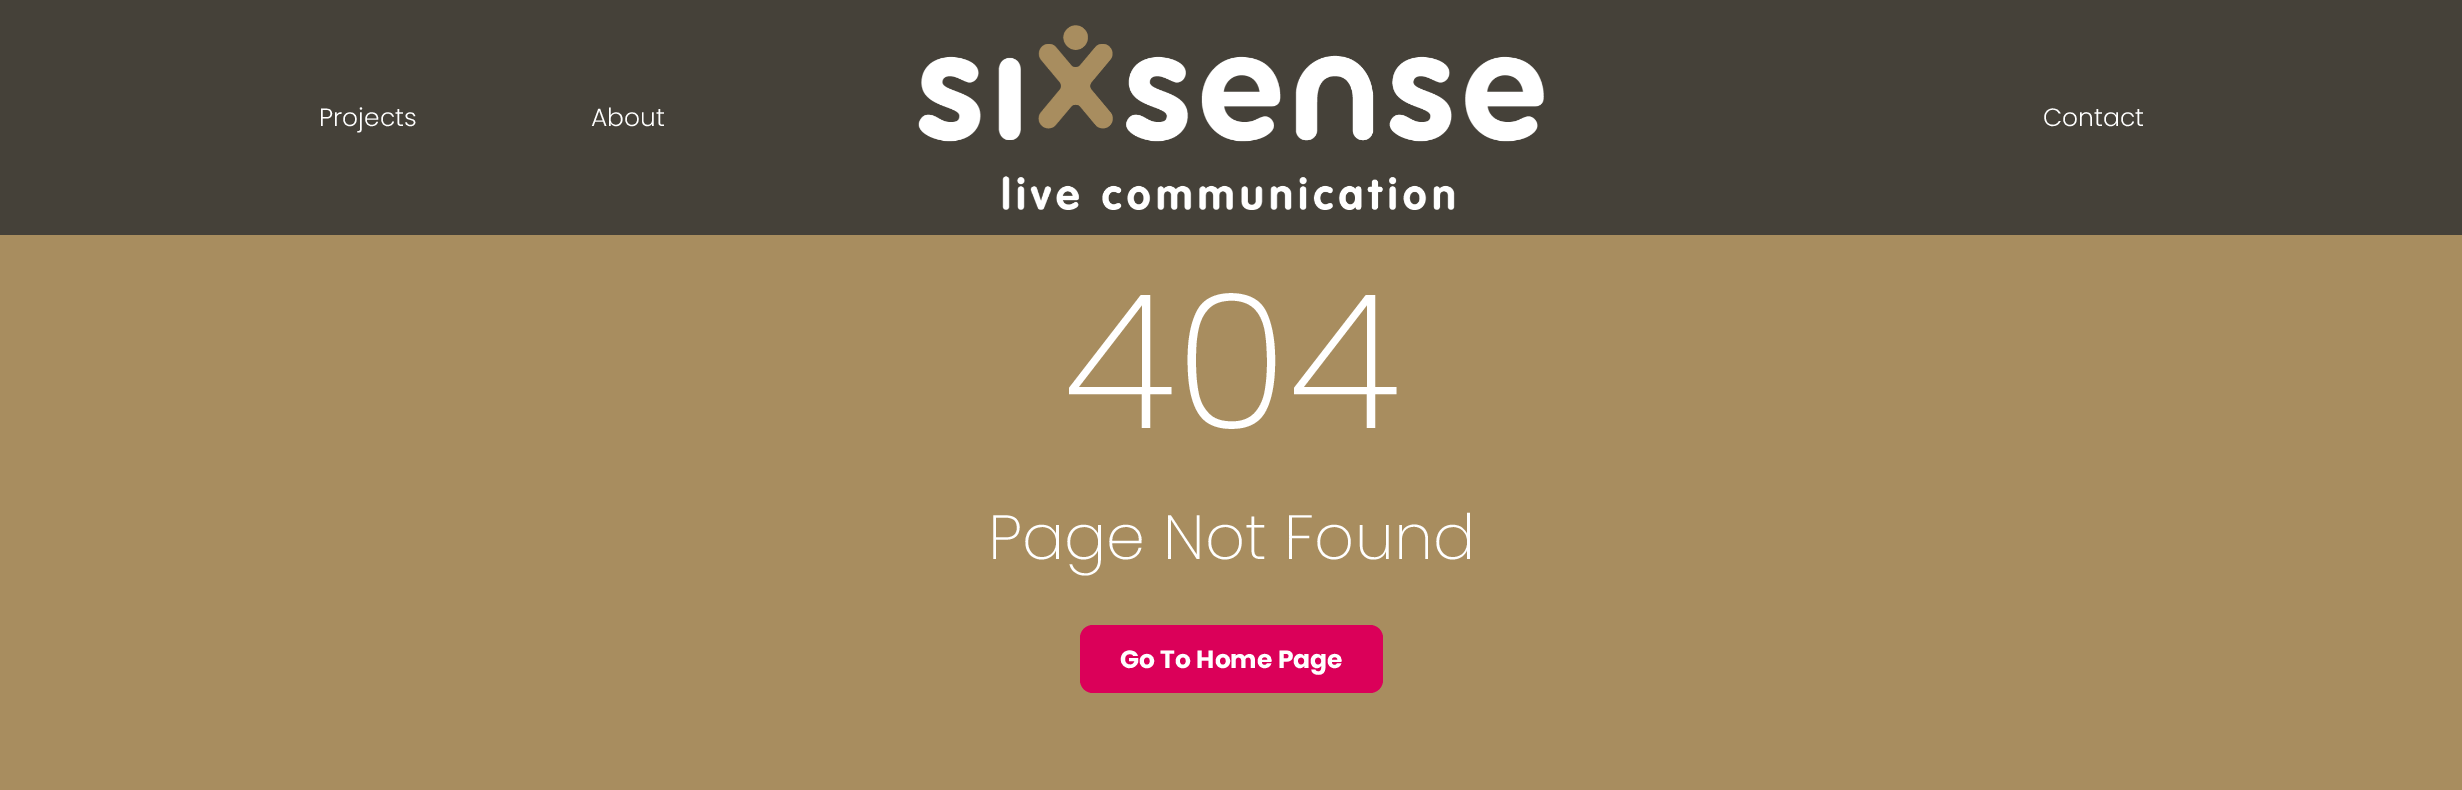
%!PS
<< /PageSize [2462 790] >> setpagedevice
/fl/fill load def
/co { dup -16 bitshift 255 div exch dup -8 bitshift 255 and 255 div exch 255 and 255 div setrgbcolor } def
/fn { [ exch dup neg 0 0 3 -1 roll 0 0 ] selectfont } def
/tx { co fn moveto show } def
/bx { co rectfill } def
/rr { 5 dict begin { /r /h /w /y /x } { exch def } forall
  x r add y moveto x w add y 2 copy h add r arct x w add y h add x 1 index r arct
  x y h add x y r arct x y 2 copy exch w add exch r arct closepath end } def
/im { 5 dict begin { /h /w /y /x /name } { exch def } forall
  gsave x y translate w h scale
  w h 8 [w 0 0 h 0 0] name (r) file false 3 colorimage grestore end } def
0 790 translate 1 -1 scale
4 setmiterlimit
0 0 2462 790 16#A88D5F bx
0 0 2462 235 16#454139 bx
(media/1.raw) 918 25 626 185 im
16#DB0059 co
1080 625 303 68 13 rr fl
(Projects) 319 126 /Poppins-Light 25 16#FFFFFF tx
(About) 591 126 /Poppins-Light 25 16#FFFFFF tx
(Contact) 2043 126 /Poppins-Light 25 16#FFFFFF tx
(404) 1064 428 /Poppins-ExtraLight 188 16#FFFFFF tx
(Page Not Found) 988 559 /Poppins-ExtraLight 62.5 16#FFFFFF tx
(Go To Home Page) 1120 668 /Poppins-Bold 25 16#FFFFFF tx
showpage
